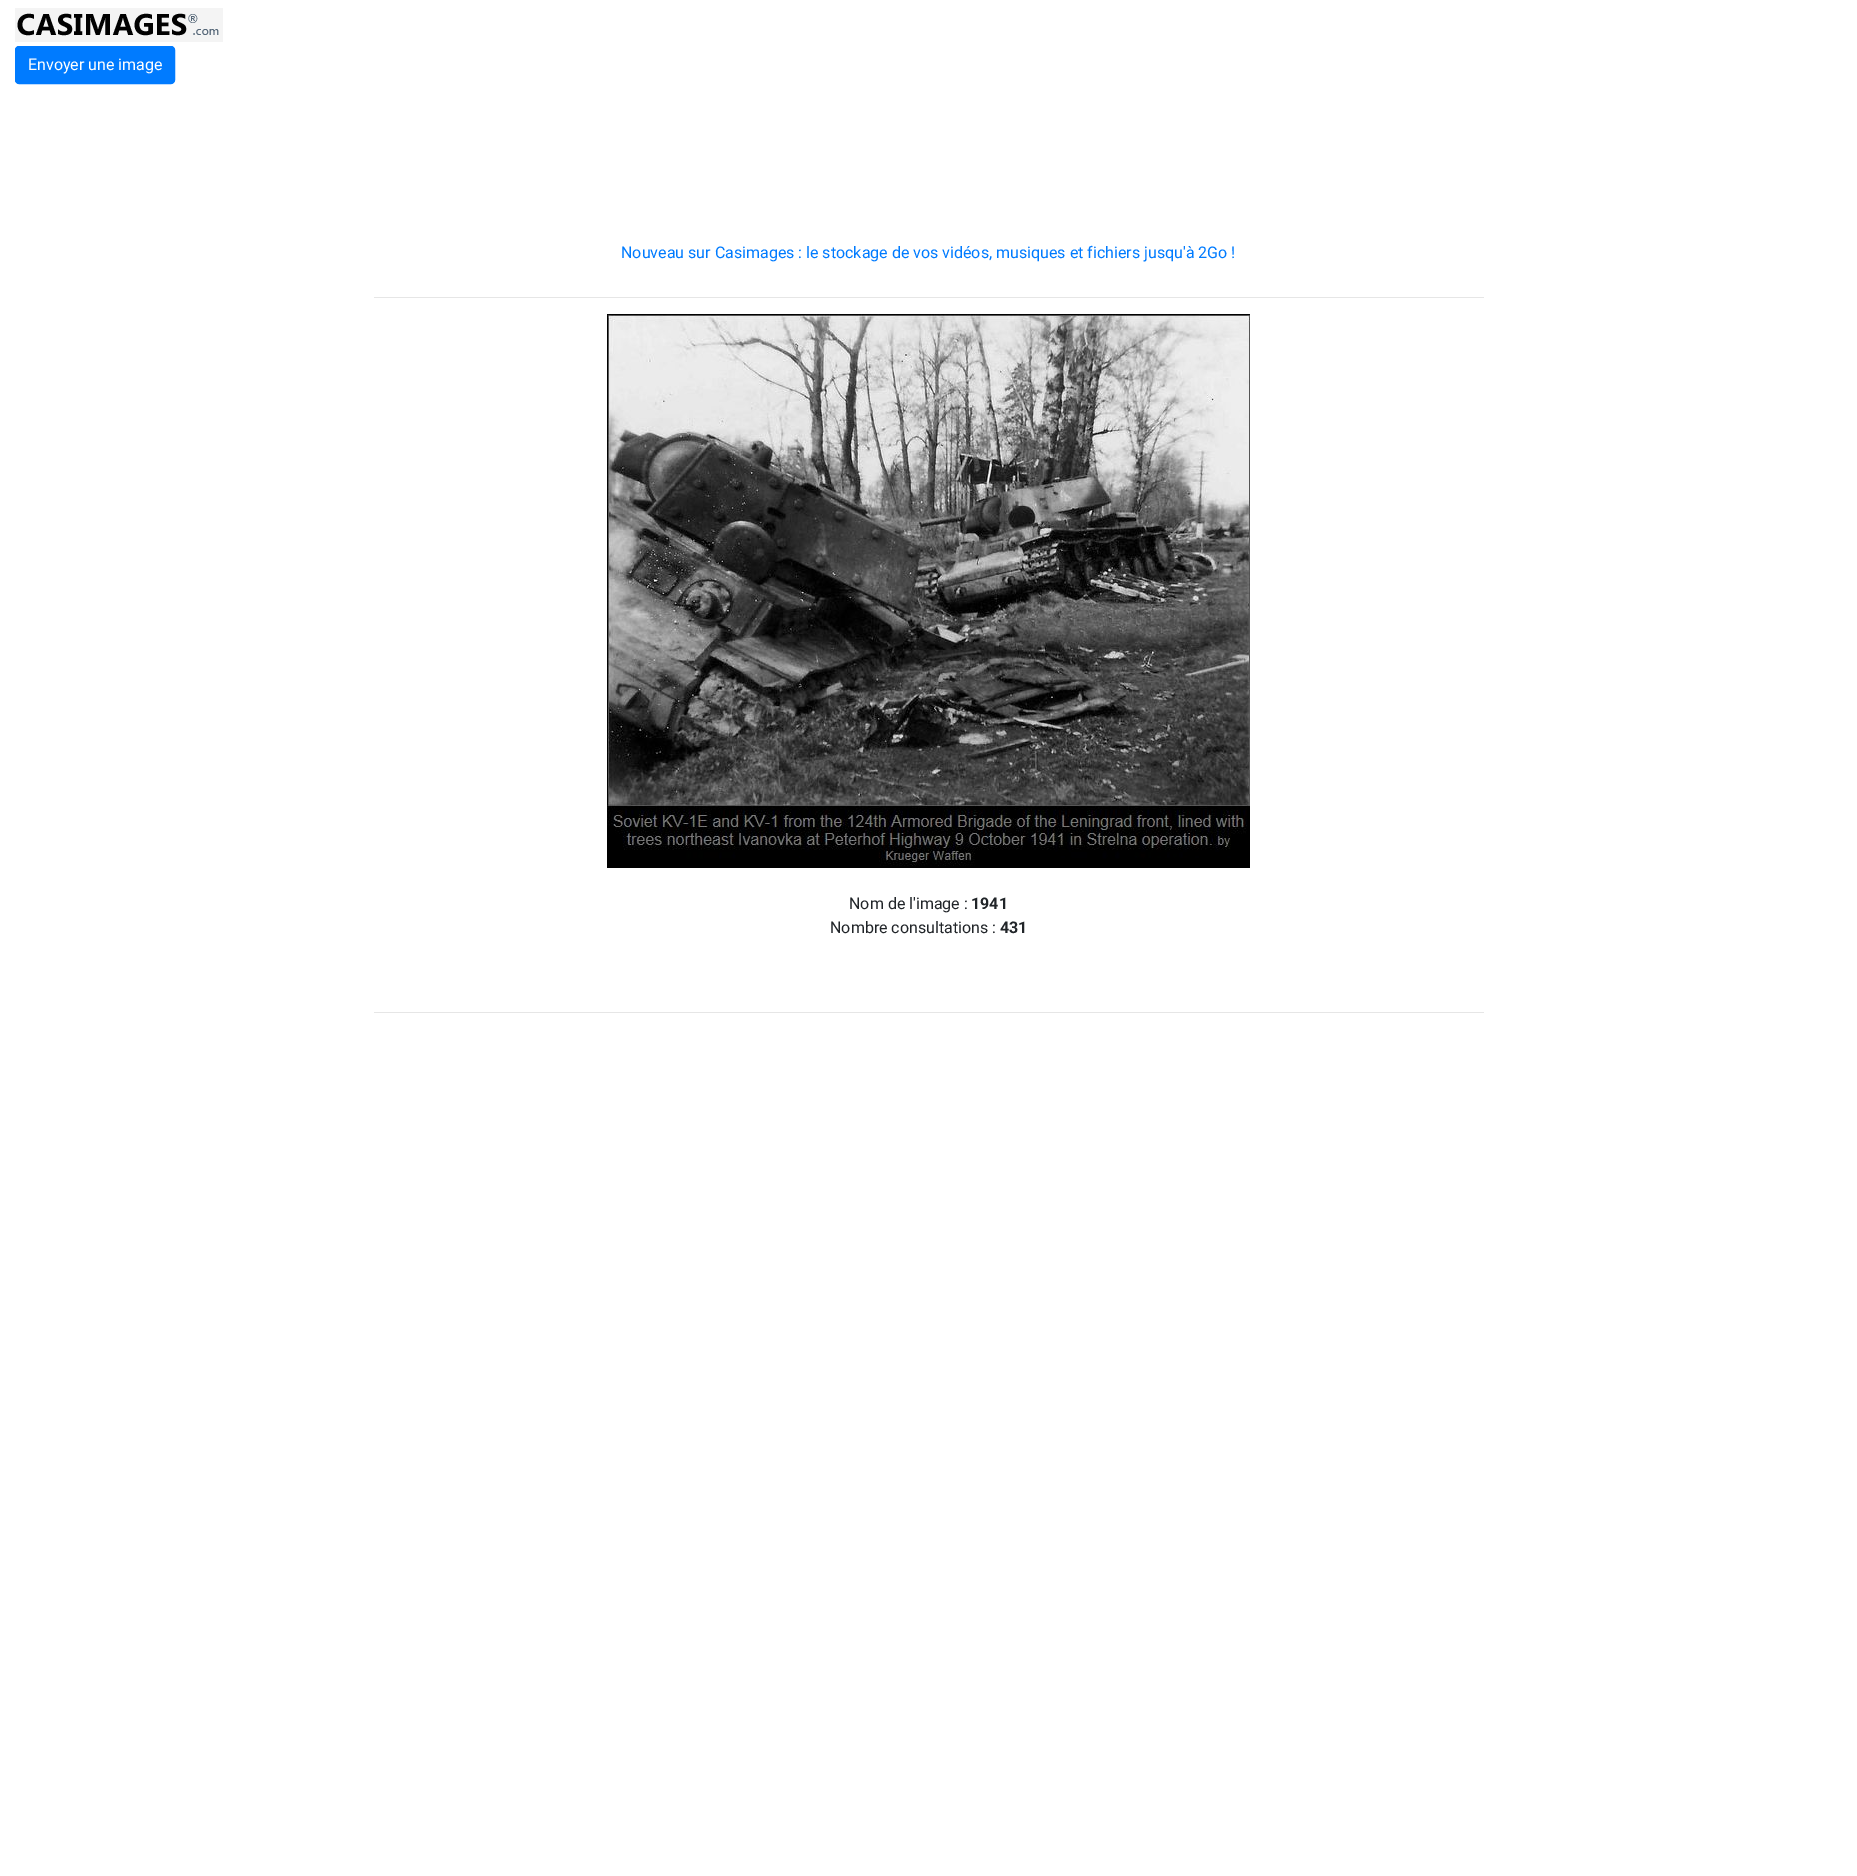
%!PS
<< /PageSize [1857 1876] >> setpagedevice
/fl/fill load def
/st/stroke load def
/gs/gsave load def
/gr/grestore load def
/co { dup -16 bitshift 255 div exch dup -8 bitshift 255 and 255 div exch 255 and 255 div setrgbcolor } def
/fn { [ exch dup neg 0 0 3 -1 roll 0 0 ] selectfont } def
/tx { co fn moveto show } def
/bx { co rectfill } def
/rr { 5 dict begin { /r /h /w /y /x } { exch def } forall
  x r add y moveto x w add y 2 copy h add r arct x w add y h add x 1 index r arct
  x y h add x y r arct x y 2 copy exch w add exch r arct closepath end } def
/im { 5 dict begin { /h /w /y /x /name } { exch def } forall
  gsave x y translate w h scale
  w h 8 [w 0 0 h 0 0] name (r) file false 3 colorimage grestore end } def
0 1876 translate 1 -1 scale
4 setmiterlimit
0 0 1857 1876 16#FFFFFF bx
(media/1.raw) 15 8 208 34 im
16#007BFF co
15.5 46.5 159 37 3.5 rr gs fl gr
st
374 297 1110 1 16#E6E6E6 bx
(media/2.raw) 607 314 643 554 im
374 1012 1110 1 16#E6E6E6 bx
(Envoyer une image) 28 70 /Roboto-Regular 16 16#FFFFFF tx
(Nouveau sur Casimages : le stockage de vos vidéos, musiques et fichiers jusqu'à 2Go !) 621 258 /Roboto-Regular 16 16#007BFF tx
(Nom de l'image :) 849 909 /Roboto-Regular 16 16#212529 tx
(1941) 971 909 /Roboto-Bold 16 16#212529 tx
(Nombre consultations :) 830 933 /Roboto-Regular 16 16#212529 tx
(431) 1000 933 /Roboto-Bold 16 16#212529 tx
showpage
